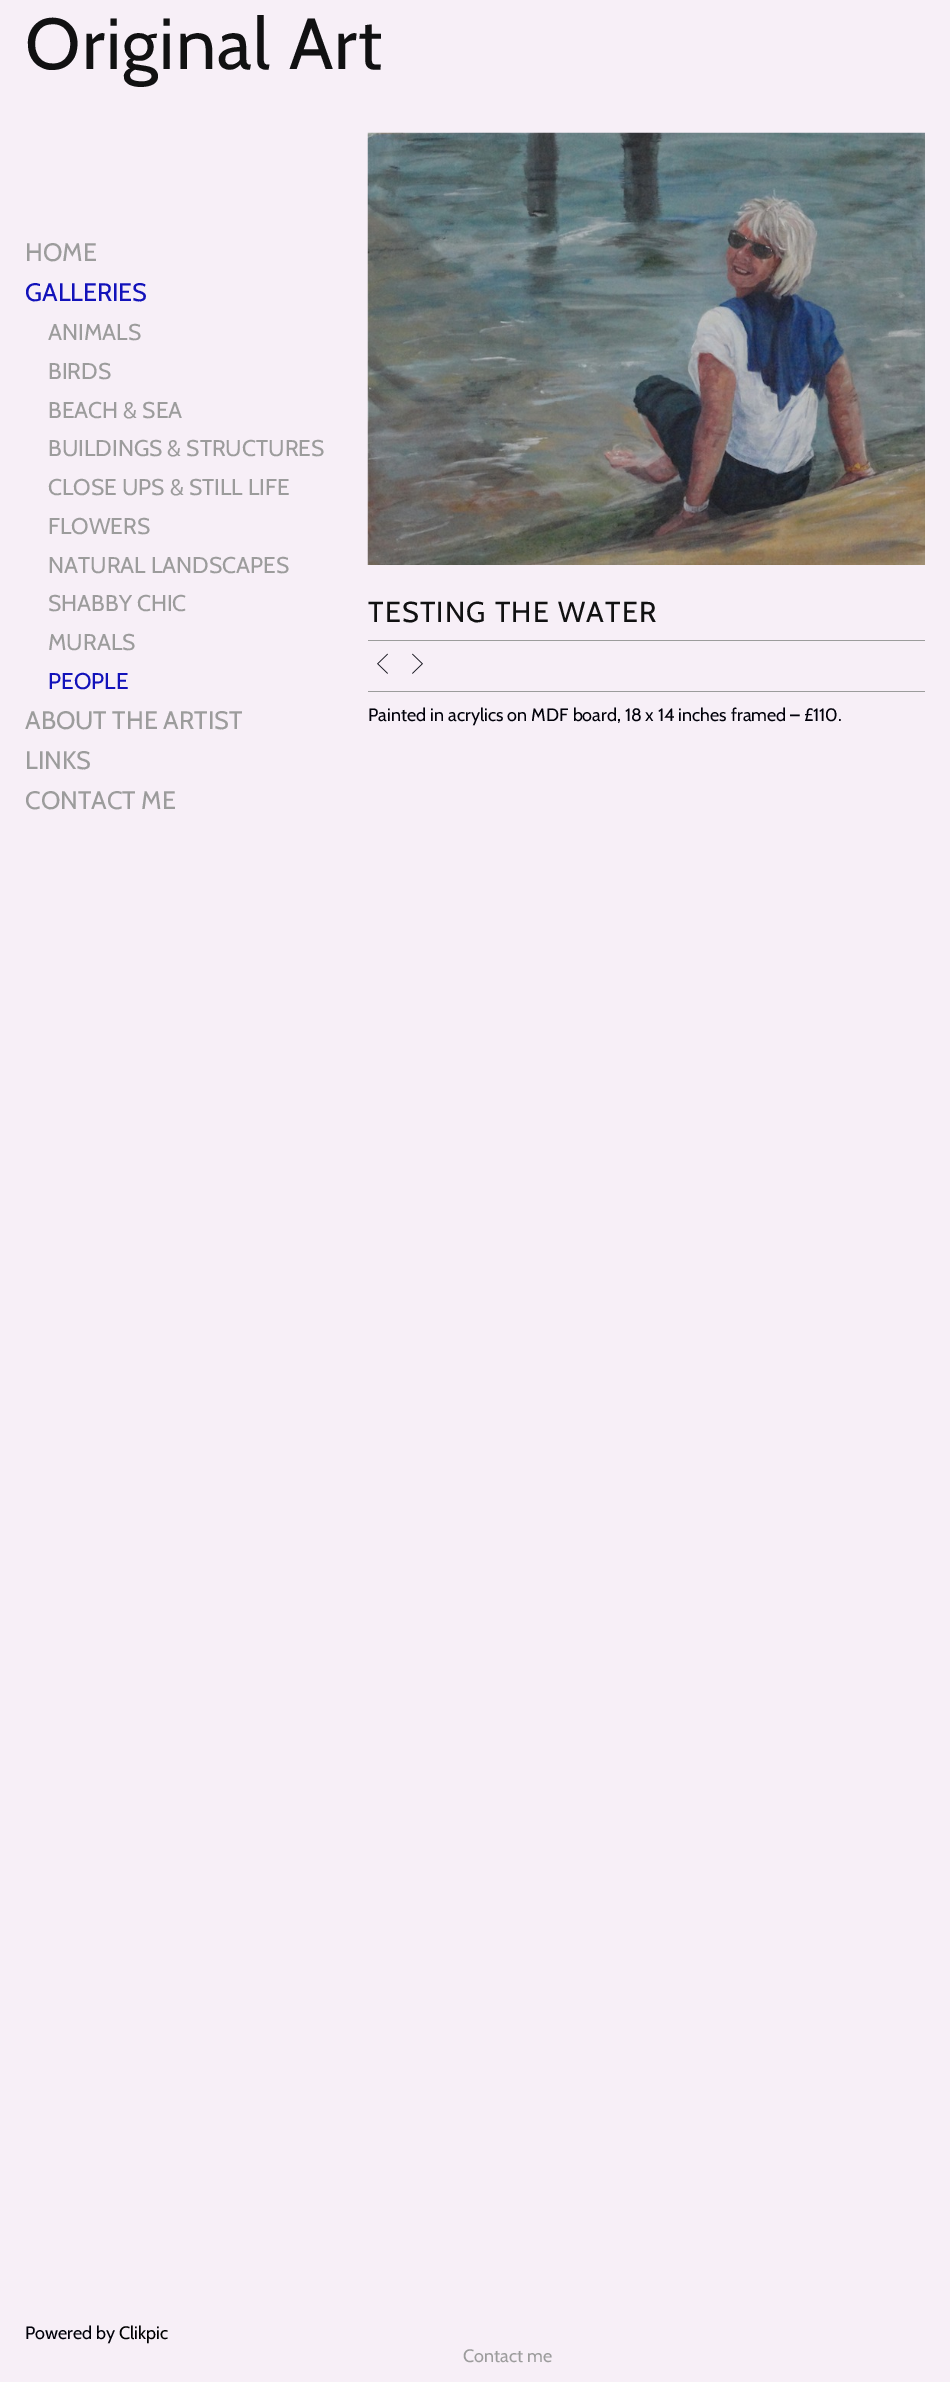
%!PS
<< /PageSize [950 2382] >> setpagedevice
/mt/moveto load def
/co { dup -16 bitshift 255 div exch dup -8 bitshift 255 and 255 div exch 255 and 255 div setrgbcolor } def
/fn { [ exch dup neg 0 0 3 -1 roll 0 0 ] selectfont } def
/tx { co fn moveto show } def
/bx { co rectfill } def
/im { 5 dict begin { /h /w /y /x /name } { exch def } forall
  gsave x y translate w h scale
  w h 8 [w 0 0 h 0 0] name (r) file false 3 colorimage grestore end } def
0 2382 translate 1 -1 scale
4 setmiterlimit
0 0 950 2382 16#F7EFF7 bx
(media/1.raw) 367 132 558 433 im
368 640 557 1 16#9C9C9C bx
368 691 557 1 16#9C9C9C bx
(media/2.raw) 377 653 11 21 im
(media/3.raw) 412 653 11 21 im
/Cabin-Regular 72 fn
16#111112 co
25 69 mt 1.25 0 (Original Art) ashow
(HOME) 25 261 /Cabin-Regular 25.25 16#9C9C9C tx
(GALLERIES) 25 301 /Cabin-Regular 25.25 16#1212BA tx
(ABOUT THE ARTIST) 25 729 /Cabin-Regular 25.25 16#9C9C9C tx
(LINKS) 25 769 /Cabin-Regular 25.25 16#9C9C9C tx
(CONTACT ME) 25 809 /Cabin-Regular 25.25 16#9C9C9C tx
/Cabin-Regular 28.75 fn
16#111112 co
368 622 mt 1.25 0 (TESTING THE WATER) ashow
(Painted in acrylics on MDF board, 18 x 14 inches framed – £110.) 368 721 /Cabin-Regular 18 16#01010A tx
(ANIMALS) 48 340 /Cabin-Regular 22.75 16#9C9C9C tx
(BIRDS) 48 379 /Cabin-Regular 22.75 16#9C9C9C tx
(BEACH & SEA) 48 418 /Cabin-Regular 22.75 16#9C9C9C tx
(BUILDINGS & STRUCTURES) 48 456 /Cabin-Regular 22.75 16#9C9C9C tx
(CLOSE UPS & STILL LIFE) 48 495 /Cabin-Regular 22.75 16#9C9C9C tx
(FLOWERS) 48 534 /Cabin-Regular 22.75 16#9C9C9C tx
(NATURAL LANDSCAPES) 48 573 /Cabin-Regular 22.75 16#9C9C9C tx
(SHABBY CHIC) 48 611 /Cabin-Regular 22.75 16#9C9C9C tx
(MURALS) 48 650 /Cabin-Regular 22.75 16#9C9C9C tx
(PEOPLE) 48 689 /Cabin-Regular 22.75 16#1212BA tx
(Powered by) 25 2339 /Cabin-Regular 18 16#01010A tx
(Clikpic) 119 2339 /Cabin-Regular 18 16#000000 tx
(Contact me) 463 2362 /Cabin-Regular 18 16#9C9C9C tx
showpage
